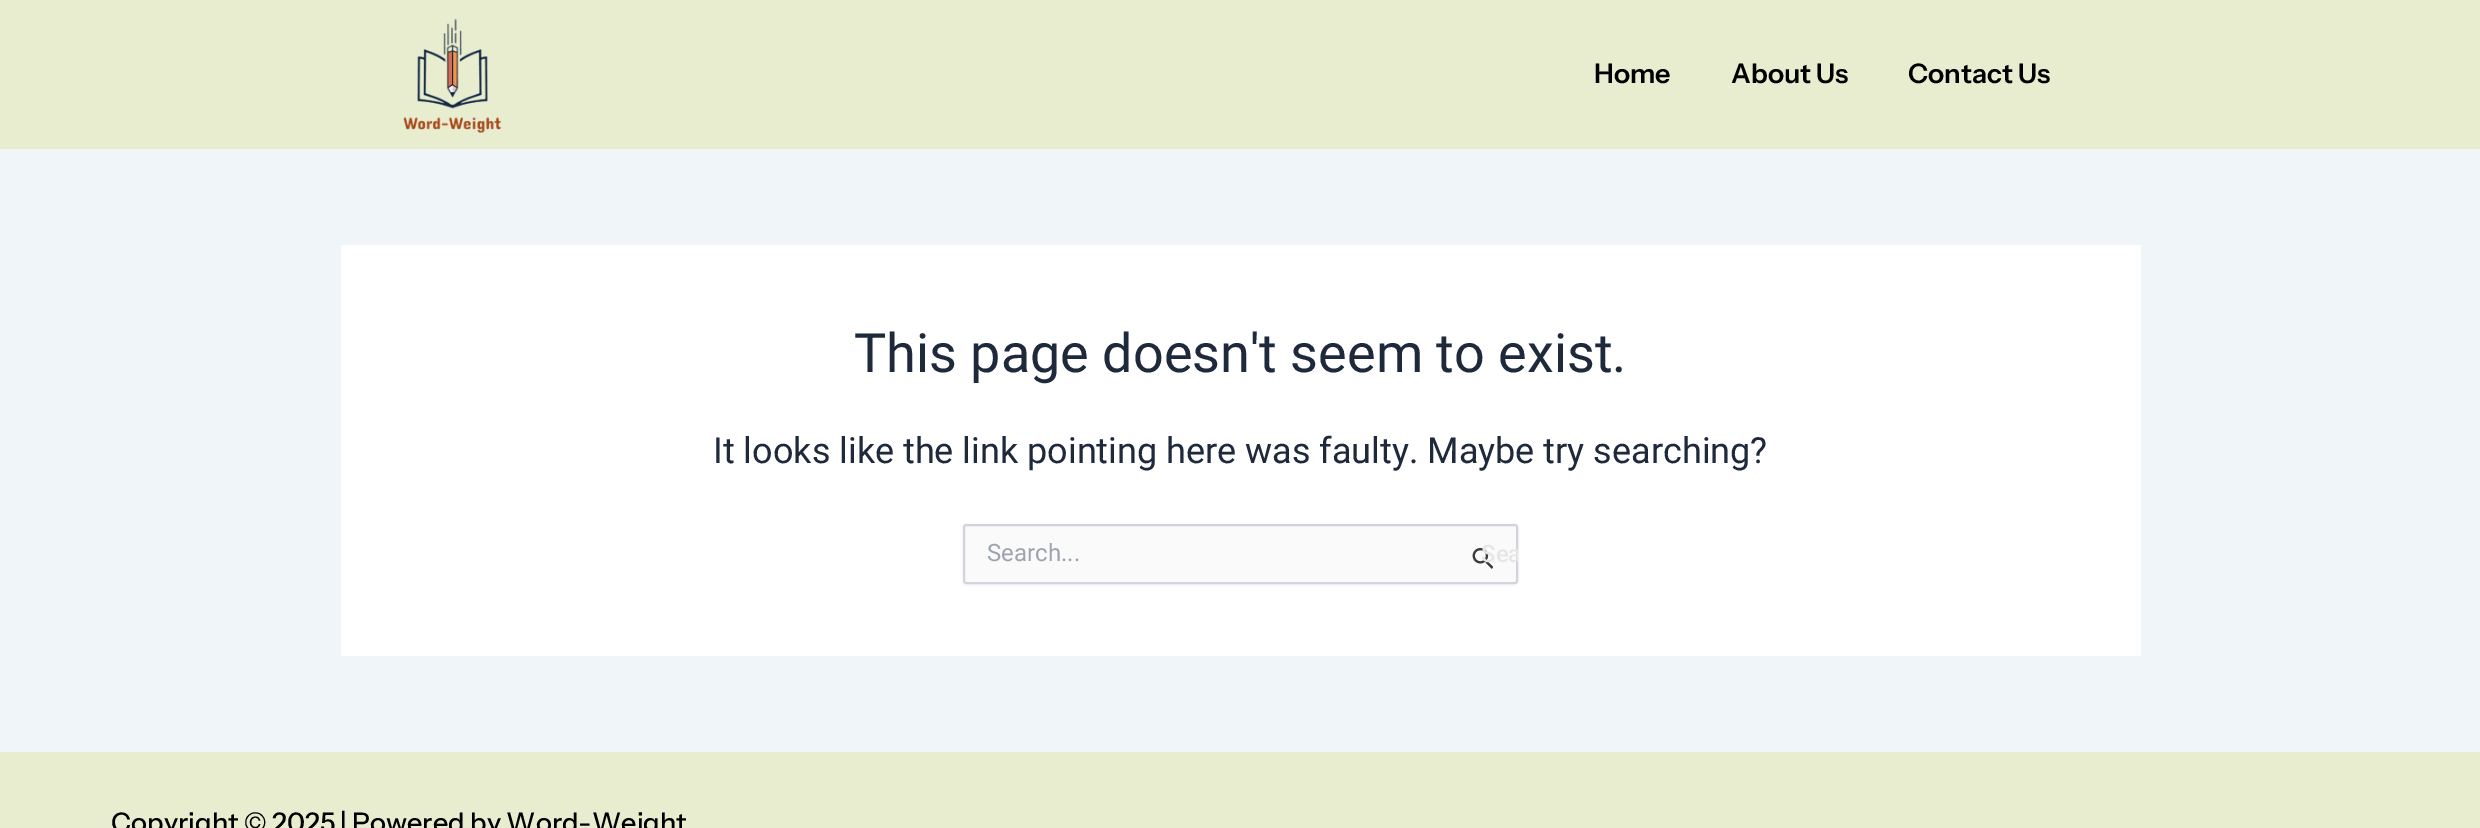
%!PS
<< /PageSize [2480 828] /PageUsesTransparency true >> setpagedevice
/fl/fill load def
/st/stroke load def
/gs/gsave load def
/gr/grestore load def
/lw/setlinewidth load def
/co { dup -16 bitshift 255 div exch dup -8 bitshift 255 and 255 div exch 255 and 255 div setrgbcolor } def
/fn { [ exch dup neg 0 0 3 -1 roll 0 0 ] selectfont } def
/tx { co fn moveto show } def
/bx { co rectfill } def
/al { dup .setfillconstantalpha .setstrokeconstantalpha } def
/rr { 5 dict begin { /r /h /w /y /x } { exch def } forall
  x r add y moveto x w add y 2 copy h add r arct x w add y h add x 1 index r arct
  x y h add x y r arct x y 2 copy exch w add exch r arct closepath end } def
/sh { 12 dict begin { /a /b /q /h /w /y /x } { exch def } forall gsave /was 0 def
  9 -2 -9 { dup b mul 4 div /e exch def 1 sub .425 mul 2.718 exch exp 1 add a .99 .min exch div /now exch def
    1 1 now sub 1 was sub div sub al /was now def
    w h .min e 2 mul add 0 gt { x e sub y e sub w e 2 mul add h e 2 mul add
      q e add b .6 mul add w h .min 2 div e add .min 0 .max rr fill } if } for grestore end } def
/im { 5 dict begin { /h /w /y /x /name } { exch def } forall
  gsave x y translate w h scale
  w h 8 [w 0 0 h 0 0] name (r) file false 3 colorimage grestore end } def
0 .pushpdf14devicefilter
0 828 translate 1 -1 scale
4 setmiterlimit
0 0 2480 828 16#F0F5FA bx
0 0 2480 149 16#E8EDCF bx
(media/1.raw) 403 18 98 115 im
341 245 1800 411 16#FFFFFF bx
16#000000 co
963 525 555 60 3 1.5 .05 sh
16#FAFAFA co
964 525 553 58 2 rr gs fl gr
16#D1D5DB co
2 lw
st
(media/2.raw) 1472 548 21 21 im
0 752 2480 76 16#E8EDCF bx
(Home) 1594 83 /InstrumentSans-SemiBold 27 16#000000 tx
(About Us) 1731 83 /InstrumentSans-SemiBold 27 16#000000 tx
(Contact Us) 1908 83 /InstrumentSans-SemiBold 27 16#000000 tx
(This page doesn't seem to exist.) 854 372 /Roboto-Regular 54 16#1E293B tx
(It looks like the link pointing here was faulty. Maybe try searching?) 713 463 /Roboto-Regular 36 16#1E293B tx
(Search...) 987 561 /Roboto-Regular 24 16#9CA3AF tx
gs
1451 524 67 63 3 rr clip newpath
(Sea) 1481 562 /Roboto-Medium 24 16#E6E6E6 tx
gr
(Copyright © 2025 | Powered by Word-Weight) 111 832 /InstrumentSans-Medium 27 16#000000 tx
.poppdf14devicefilter showpage
